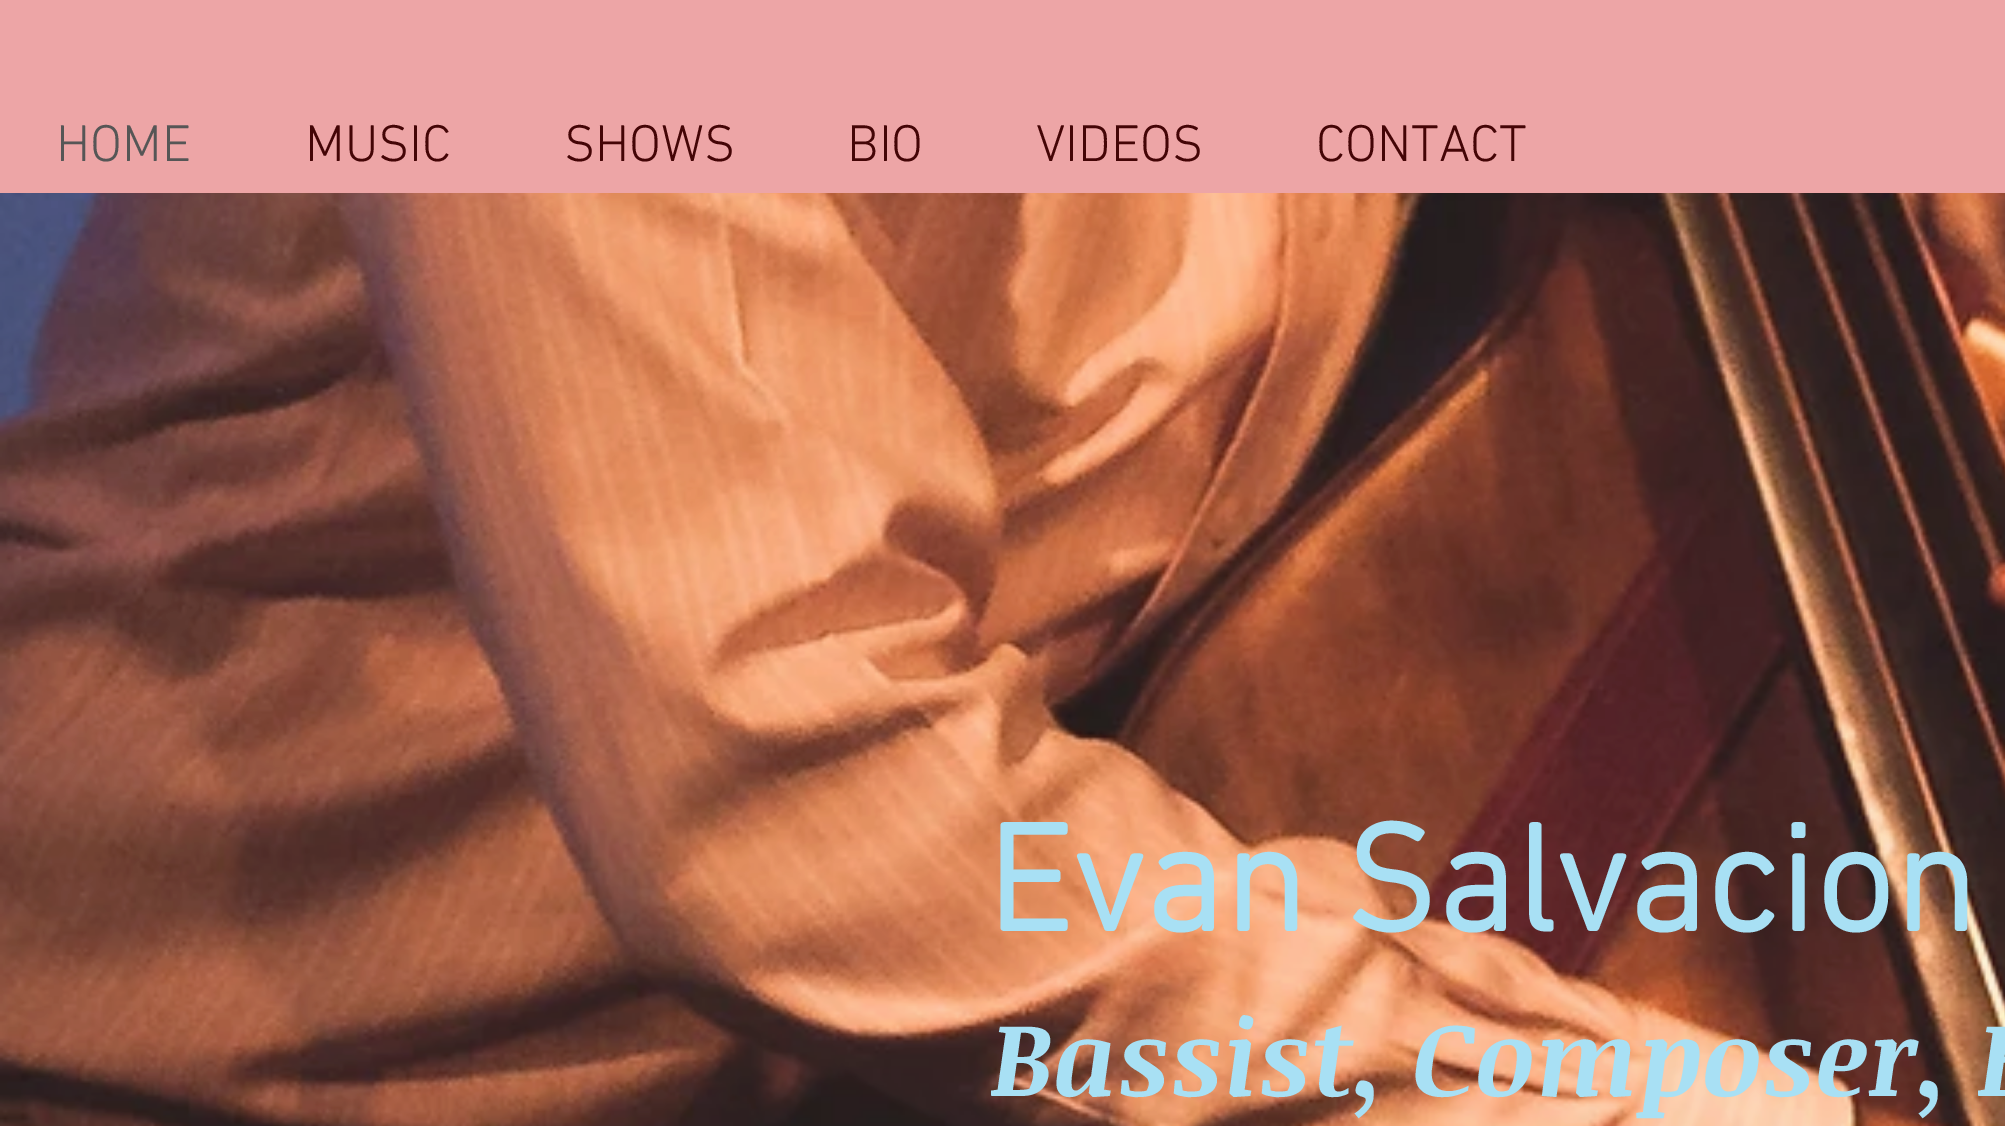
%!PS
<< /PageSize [2005 1126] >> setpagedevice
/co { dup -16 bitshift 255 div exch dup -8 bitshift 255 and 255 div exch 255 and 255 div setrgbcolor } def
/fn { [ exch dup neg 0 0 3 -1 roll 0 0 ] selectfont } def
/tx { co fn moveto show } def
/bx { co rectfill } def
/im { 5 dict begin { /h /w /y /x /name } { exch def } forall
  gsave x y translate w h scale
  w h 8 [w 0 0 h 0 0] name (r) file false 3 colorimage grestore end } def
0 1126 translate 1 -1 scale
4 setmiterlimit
0 0 2005 1126 16#FFFFFF bx
0 0 2005 193 16#EDA5A6 bx
(media/1.raw) 0 193 2005 933 im
(HOME) 56 161 /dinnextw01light-Light 52.5 16#565656 tx
(MUSIC) 305 161 /dinnextw01light-Light 52.5 16#440506 tx
(SHOWS) 564 161 /dinnextw01light-Light 52.5 16#440506 tx
(BIO) 847 161 /dinnextw01light-Light 52.5 16#440506 tx
(VIDEOS) 1036 161 /dinnextw01light-Light 52.5 16#440506 tx
(CONTACT) 1316 161 /dinnextw01light-Light 52.5 16#440506 tx
(Evan Salvacion) 986 931 /dinnextw01light-Bold 154 16#A8E0F4 tx
(Bassist, Composer, E) 991 1096 /NoticiaText-BoldItalic 105 16#A8E0F4 tx
showpage
